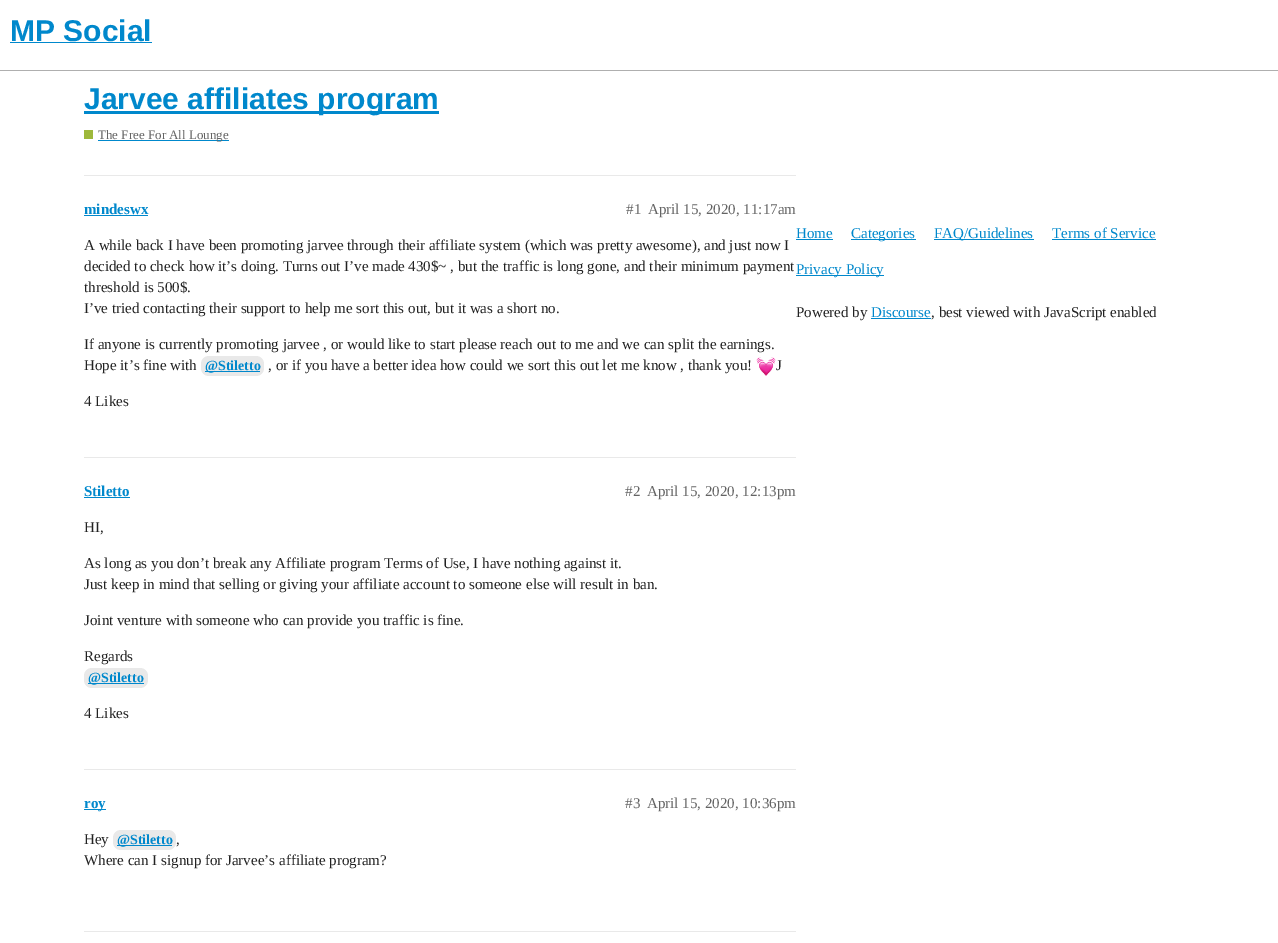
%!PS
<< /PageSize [1278 943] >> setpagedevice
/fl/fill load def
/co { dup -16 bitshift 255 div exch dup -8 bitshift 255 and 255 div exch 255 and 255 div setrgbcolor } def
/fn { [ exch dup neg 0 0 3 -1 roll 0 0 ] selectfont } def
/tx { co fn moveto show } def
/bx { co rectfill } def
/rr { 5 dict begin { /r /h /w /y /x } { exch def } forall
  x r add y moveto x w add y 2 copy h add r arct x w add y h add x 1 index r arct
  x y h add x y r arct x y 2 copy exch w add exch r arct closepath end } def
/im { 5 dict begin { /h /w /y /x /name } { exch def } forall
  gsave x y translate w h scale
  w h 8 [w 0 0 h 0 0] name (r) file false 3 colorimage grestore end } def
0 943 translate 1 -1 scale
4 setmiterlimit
0 0 1278 943 16#FFFFFF bx
0 70 1278 1 16#AFAFAF bx
10 42 142 1 16#0088CC bx
84 111 355 3 16#0088CC bx
84 130 9 9 16#9EB83B bx
98 140 131 1 16#0088CC bx
84 175 712 1 16#E9E9E9 bx
84 215 64 1 16#0088CC bx
16#E9E9E9 co
201 356 63 20 8 rr fl
205 371 55 1 16#0088CC bx
(media/1.raw) 756 357 20 19 im
84 457 712 1 16#E9E9E9 bx
84 497 46 1 16#0088CC bx
16#E9E9E9 co
84 668 64 20 8 rr fl
88 683 56 1 16#0088CC bx
84 769 712 1 16#E9E9E9 bx
84 809 22 1 16#0088CC bx
16#E9E9E9 co
113 830 63 20 8 rr fl
117 845 55 1 16#0088CC bx
84 931 712 1 16#E9E9E9 bx
796 239 37 1 16#0088CC bx
851 239 65 1 16#0088CC bx
934 239 100 1 16#0088CC bx
1052 239 104 1 16#0088CC bx
796 275 88 1 16#0088CC bx
871 318 60 1 16#0088CC bx
(MP Social) 10 41 /LiberationSans-Bold 30 16#0088CC tx
(Jarvee affiliates program) 84 109 /LiberationSans-Bold 30 16#0088CC tx
(The Free For All Lounge) 98 139 /LiberationSerif-Regular 13 16#646464 tx
(mindeswx) 84 214 /LiberationSerif-Bold 15 16#0088CC tx
(#1) 626 214 /LiberationSerif-Regular 15 16#646464 tx
(April 15, 2020, 11:17am) 648 214 /LiberationSerif-Regular 15 16#646464 tx
(A while back I have been promoting jarvee through their affiliate system \(which was pretty awesome\), and just now I) 84 250 /LiberationSerif-Regular 15 16#222222 tx
(decided to check how it’s doing. Turns out I’ve made 430$~ , but the traffic is long gone, and their minimum payment) 84 271 /LiberationSerif-Regular 15 16#222222 tx
(threshold is 500$.) 84 292 /LiberationSerif-Regular 15 16#222222 tx
(I’ve tried contacting their support to help me sort this out, but it was a short no.) 84 313 /LiberationSerif-Regular 15 16#222222 tx
(If anyone is currently promoting jarvee , or would like to start please reach out to me and we can split the earnings.) 84 349 /LiberationSerif-Regular 15 16#222222 tx
(Hope it’s fine with) 84 370 /LiberationSerif-Regular 15 16#222222 tx
(@Stiletto) 205 370 /LiberationSerif-Bold 14 16#0088CC tx
(, or if you have a better idea how could we sort this out let me know , thank you!) 268 370 /LiberationSerif-Regular 15 16#222222 tx
(J) 776 370 /LiberationSerif-Regular 15 16#222222 tx
(4 Likes) 84 406 /LiberationSerif-Regular 15 16#222222 tx
(Stiletto) 84 496 /LiberationSerif-Bold 15 16#0088CC tx
(#2) 625 496 /LiberationSerif-Regular 15 16#646464 tx
(April 15, 2020, 12:13pm) 647 496 /LiberationSerif-Regular 15 16#646464 tx
(HI,) 84 532 /LiberationSerif-Regular 15 16#222222 tx
(As long as you don’t break any Affiliate program Terms of Use, I have nothing against it.) 84 568 /LiberationSerif-Regular 15 16#222222 tx
(Just keep in mind that selling or giving your affiliate account to someone else will result in ban.) 84 589 /LiberationSerif-Regular 15 16#222222 tx
(Joint venture with someone who can provide you traffic is fine.) 84 625 /LiberationSerif-Regular 15 16#222222 tx
(Regards) 84 661 /LiberationSerif-Regular 15 16#222222 tx
(@Stiletto) 88 682 /LiberationSerif-Bold 14 16#0088CC tx
(4 Likes) 84 718 /LiberationSerif-Regular 15 16#222222 tx
(roy) 84 808 /LiberationSerif-Bold 15 16#0088CC tx
(#3) 625 808 /LiberationSerif-Regular 15 16#646464 tx
(April 15, 2020, 10:36pm) 647 808 /LiberationSerif-Regular 15 16#646464 tx
(Hey) 84 844 /LiberationSerif-Regular 15 16#222222 tx
(@Stiletto) 117 844 /LiberationSerif-Bold 14 16#0088CC tx
(,) 176 844 /LiberationSerif-Regular 15 16#222222 tx
(Where can I signup for Jarvee’s affiliate program?) 84 865 /LiberationSerif-Regular 15 16#222222 tx
(Home) 796 238 /LiberationSerif-Regular 15 16#0088CC tx
(Categories) 851 238 /LiberationSerif-Regular 15 16#0088CC tx
(FAQ/Guidelines) 934 238 /LiberationSerif-Regular 15 16#0088CC tx
(Terms of Service) 1052 238 /LiberationSerif-Regular 15 16#0088CC tx
(Privacy Policy) 796 274 /LiberationSerif-Regular 15 16#0088CC tx
(Powered by) 796 317 /LiberationSerif-Regular 15 16#222222 tx
(Discourse) 871 317 /LiberationSerif-Regular 15 16#0088CC tx
(, best viewed with JavaScript enabled) 931 317 /LiberationSerif-Regular 15 16#222222 tx
showpage
